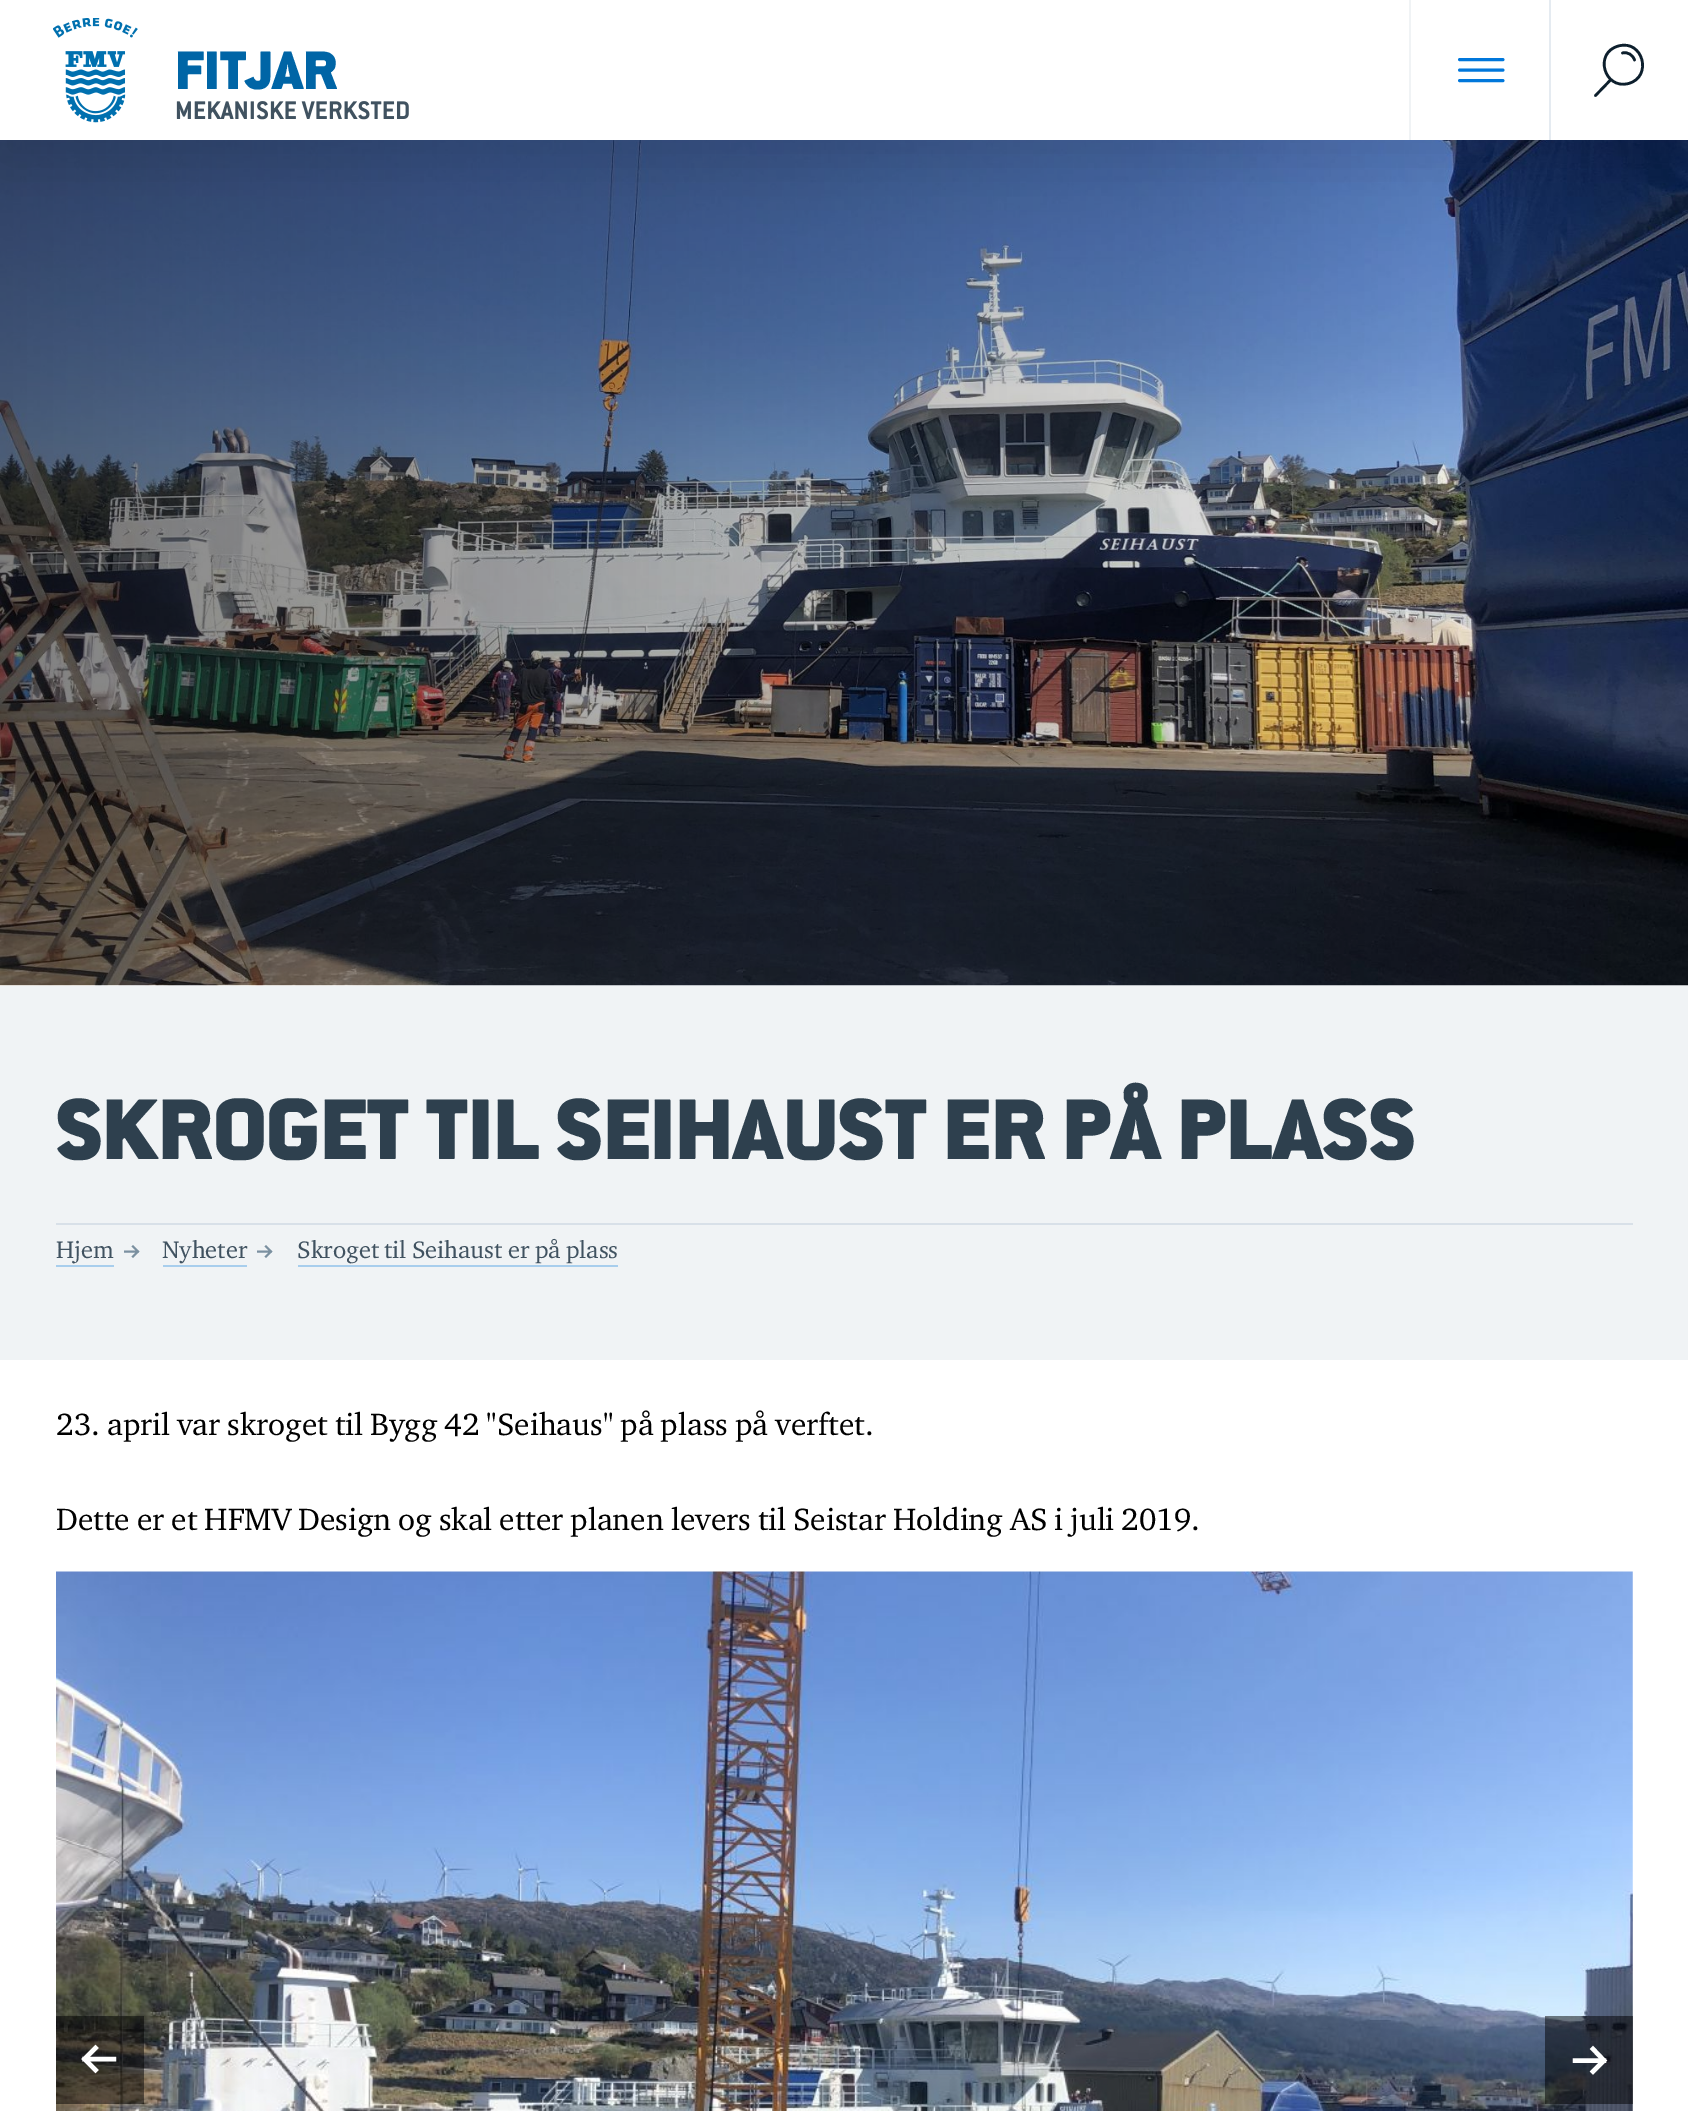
%!PS
<< /PageSize [1688 2111] /PageUsesTransparency true >> setpagedevice
/mt/moveto load def
/li/lineto load def
/ct/curveto load def
/cp/closepath load def
/st/stroke load def
/lw/setlinewidth load def
/co { dup -16 bitshift 255 div exch dup -8 bitshift 255 and 255 div exch 255 and 255 div setrgbcolor } def
/fn { [ exch dup neg 0 0 3 -1 roll 0 0 ] selectfont } def
/tx { co fn moveto show } def
/bx { co rectfill } def
/al { dup .setfillconstantalpha .setstrokeconstantalpha } def
/rr { 5 dict begin { /r /h /w /y /x } { exch def } forall
  x r add y moveto x w add y 2 copy h add r arct x w add y h add x 1 index r arct
  x y h add x y r arct x y 2 copy exch w add exch r arct closepath end } def
/sh { 12 dict begin { /a /b /q /h /w /y /x } { exch def } forall gsave /was 0 def
  9 -2 -9 { dup b mul 4 div /e exch def 1 sub .425 mul 2.718 exch exp 1 add a .99 .min exch div /now exch def
    1 1 now sub 1 was sub div sub al /was now def
    w h .min e 2 mul add 0 gt { x e sub y e sub w e 2 mul add h e 2 mul add
      q e add b .6 mul add w h .min 2 div e add .min 0 .max rr fill } if } for grestore end } def
/im { 5 dict begin { /h /w /y /x /name } { exch def } forall
  gsave x y translate w h scale
  w h 8 [w 0 0 h 0 0] name (r) file false 3 colorimage grestore end } def
0 .pushpdf14devicefilter
0 2111 translate 1 -1 scale
4 setmiterlimit
0 0 1688 2111 16#FFFFFF bx
0 985 1688 375 16#F0F3F5 bx
(media/3.raw) 0 140 1688 846 im
16#000000 co
0 21 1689 140 0 28 .1 sh
0 0 1688 140 16#FFFFFF bx
(media/1.raw) 53 18 85 105 im
(media/2.raw) 176 101 233 19 im
16#0077DB co
2.9 lw
1 setlinecap
1 setlinejoin
1459.5 59.5 mt 1503 59.5 li 1459.5 70 mt 1503 70 li 1459.5 80.5 mt 1503 80.5 li st
1409 0 2 140 16#F0F3F5 bx
16#0D1F2D co
2.6 lw
1618.5 46 mt 1593.5 52.5 1604 90 1628.5 83.5 ct 1653 77 1643 39 1618.5 46 ct cp 1622.5 53 mt 1627.5 51.5 1633 55 1634.5 60 ct 1610.5 80 mt 1595.5 95.5 li st
1549 0 2 140 16#E5EBF1 bx
56 1223 1577 2 16#D8E0E8 bx
16#7B90A0 co
2 lw
2 setlinecap
0 setlinejoin
125 1251.5 mt 138 1251.5 li 138 1251.5 mt 133 1246.5 li 138 1251.5 mt 133 1256.5 li st
56 1265 58 2 16#A8CEED bx
16#7B90A0 co
258 1251.5 mt 271 1251.5 li 271 1251.5 mt 266 1246.5 li 271 1251.5 mt 266 1256.5 li st
163 1265 84 2 16#A8CEED bx
298 1265 320 2 16#A8CEED bx
(media/4.raw) 56 1571 1577 540 im
0.5 al
56 2016 88 88 16#000000 bx
1 al
16#FFFFFF co
4.4 lw
114 2059 mt 84.5 2059 li 84.5 2059 mt 95.5 2070 li 84.5 2059 mt 95.5 2048 li st
0.5 al
1545 2016 88 88 16#000000 bx
1 al
16#FFFFFF co
1575 2060.5 mt 1604 2060.5 li 1604 2060.5 mt 1593 2049 li 1604 2060.5 mt 1593 2071.5 li st
(FITJAR) 175 89 /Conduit-Black 59.5 16#0065A6 tx
(SKROGET TIL SEIHAUST ER PÅ PLASS) 56 1159 /Conduit-Black 94.5 16#2E404E tx
(Hjem) 56 1258 /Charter-Regular 24.5 16#405260 tx
(Nyheter) 162 1258 /Charter-Regular 24.5 16#405260 tx
(Skroget til Seihaust er på plass) 297 1258 /Charter-Regular 24.5 16#405260 tx
(23. april var skroget til Bygg 42 "Seihaus" på plass på verftet.) 56 1435 /Charter-Regular 31.5 16#000000 tx
(Dette er et HFMV Design og skal etter planen levers til Seistar Holding AS i juli 2019.) 56 1530 /Charter-Regular 31.5 16#000000 tx
.poppdf14devicefilter showpage
